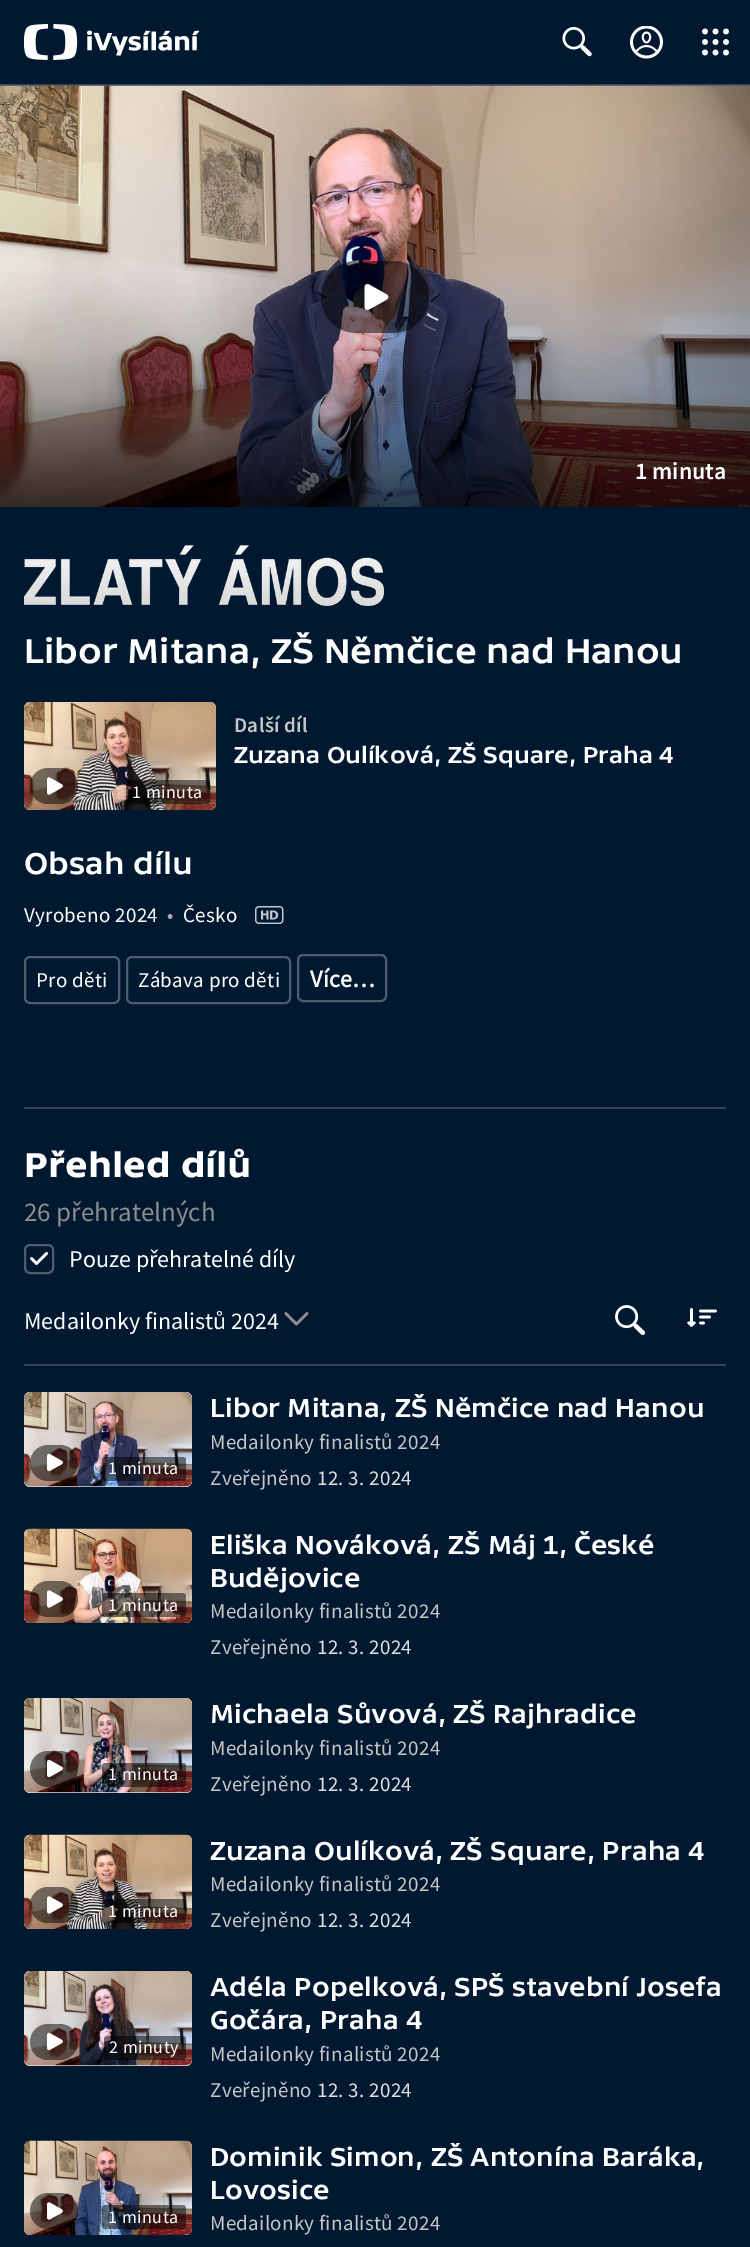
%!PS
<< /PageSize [750 2247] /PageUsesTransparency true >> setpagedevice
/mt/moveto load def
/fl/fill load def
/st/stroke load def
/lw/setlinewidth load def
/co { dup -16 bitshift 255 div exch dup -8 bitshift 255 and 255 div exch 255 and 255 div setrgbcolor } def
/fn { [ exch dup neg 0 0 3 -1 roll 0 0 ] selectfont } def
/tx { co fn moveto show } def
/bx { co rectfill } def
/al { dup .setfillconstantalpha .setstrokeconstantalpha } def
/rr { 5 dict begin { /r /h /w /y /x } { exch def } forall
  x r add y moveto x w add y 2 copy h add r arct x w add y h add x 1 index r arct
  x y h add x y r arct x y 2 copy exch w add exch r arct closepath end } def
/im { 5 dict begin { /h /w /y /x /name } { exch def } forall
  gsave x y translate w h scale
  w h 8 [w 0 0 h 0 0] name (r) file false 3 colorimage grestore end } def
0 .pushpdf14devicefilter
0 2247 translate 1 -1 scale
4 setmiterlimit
0 0 750 2247 16#001830 bx
(media/5.raw) 0 85 750 422 im
0.2 al
0 84 750 2 16#FFFFFF bx
1 al
(media/1.raw) 24 24 176 36 im
(media/2.raw) 562 27 30 30 im
(media/3.raw) 630 26 33 33 im
(media/4.raw) 702 28 27 28 im
0.5 al
16#000000 co
321 261 108 72 36 rr fl
1 al
(media/6.raw) 364 284 25 27 im
(media/7.raw) 24 545 360 61 im
(media/8.raw) 24 702 192 108 im
0.5 al
30 768 48 36 18 rr fl
1 al
(media/9.raw) 47 777 16 18 im
0.5 al
126 780 84 24 3 rr fl
1 al
(media/10.raw) 255 906 29 18 im
16#4D5D6E co
2 lw
25 957 94 46 5 rr st
127 957 163 46 5 rr st
298 955 88 46 5 rr st
24 1107 702 2 16#334659 bx
16#4D5D6E co
25 1245 28 28 5 rr st
(media/11.raw) 30 1251 18 14 im
(media/12.raw) 284 1312 25 14 im
(media/13.raw) 615 1305 31 30 im
(media/14.raw) 687 1308 30 19 im
24 1364 702 2 16#334659 bx
16#E0E0E0 co
24 1392 168 95 6 rr fl
(media/15.raw) 24 1392 168 95 im
0.5 al
16#000000 co
30 1445 48 36 18 rr fl
1 al
(media/16.raw) 47 1453 16 19 im
0.5 al
102 1457 84 24 3 rr fl
1 al
(media/17.raw) 24 1528 168 95 im
0.5 al
30 1581 48 36 18 rr fl
1 al
(media/18.raw) 47 1590 16 18 im
0.5 al
102 1593 84 24 3 rr fl
1 al
16#E0E0E0 co
24 1698 168 95 6 rr fl
(media/19.raw) 24 1698 168 95 im
0.5 al
16#000000 co
30 1751 48 36 18 rr fl
1 al
(media/20.raw) 47 1759 16 19 im
0.5 al
102 1763 84 24 3 rr fl
1 al
(media/21.raw) 24 1834 168 95 im
0.5 al
30 1887 48 36 18 rr fl
1 al
(media/22.raw) 47 1896 16 18 im
0.5 al
102 1899 84 24 3 rr fl
1 al
16#E0E0E0 co
24 1971 168 95 6 rr fl
(media/23.raw) 24 1971 168 95 im
0.5 al
16#000000 co
30 2024 48 36 18 rr fl
1 al
(media/24.raw) 47 2032 16 19 im
0.5 al
104 2036 82 24 3 rr fl
1 al
(media/25.raw) 24 2140 168 95 im
0.5 al
30 2193 48 36 18 rr fl
1 al
(media/26.raw) 47 2202 16 18 im
0.5 al
102 2205 84 24 3 rr fl
1 al
(1 minuta) 635 479 /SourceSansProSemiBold-SemiBold 24 16#FFFFFF tx
(Libor Mitana, ZŠ Němčice nad Hanou) 24 663 /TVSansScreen-Regular 36 16#FFFFFF tx
/SourceSansProSemiBold-SemiBold 21 fn
16#C6C6C6 co
234 732 mt .3 0 (Další díl) ashow
(Zuzana Oulíková, ZŠ Square, Praha 4) 234 763 /TVSansScreen-Regular 24 16#FFFFFF tx
/SourceSansPro-Regular 18 fn
132 798 mt .5 0 (1 minuta) ashow
(Obsah dílu) 24 874 /TVSansScreen-Regular 31.5 16#FFFFFF tx
/SourceSansPro-Regular 21 fn
24 922 mt .3 0 (Vyrobeno 2024) ashow
16#A8A8A8 co
167 922 mt .3 0 (•) ashow
16#FFFFFF co
183 922 mt .3 0 (Česko) ashow
36 987 mt .3 0 (Pro děti) ashow
138 987 mt .3 0 (Zábava pro děti) ashow
/SourceSansPro-Bold 24 fn
310 987 mt .3 0 (Více…) ashow
(Přehled dílů) 24 1177 /TVSansScreen-Bold 36 16#FFFFFF tx
(26 přehratelných) 24 1221 /SourceSansPro-Regular 27 16#8D8D8D tx
(Pouze přehratelné díly) 69 1267 /SourceSansPro-Regular 24 16#FFFFFF tx
(Medailonky finalistů 2024) 24 1329 /SourceSansPro-Regular 24 16#FFFFFF tx
/SourceSansPro-Regular 18 fn
108 1474 mt .5 0 (1 minuta) ashow
(Libor Mitana, ZŠ Němčice nad Hanou) 210 1417 /TVSansScreen-Regular 27 16#FFFFFF tx
/SourceSansPro-Regular 21 fn
16#C6C6C6 co
210 1449 mt .3 0 (Medailonky finalistů 2024) ashow
210 1485 mt .3 0 (Zveřejněno) ashow
16#E0E0E0 co
317 1485 mt .3 0 (12. 3. 2024) ashow
/SourceSansPro-Regular 18 fn
16#FFFFFF co
108 1611 mt .5 0 (1 minuta) ashow
(Eliška Nováková, ZŠ Máj 1, České) 210 1554 /TVSansScreen-Regular 27 16#FFFFFF tx
(Budějovice) 210 1587 /TVSansScreen-Regular 27 16#FFFFFF tx
/SourceSansPro-Regular 21 fn
16#C6C6C6 co
210 1618 mt .3 0 (Medailonky finalistů 2024) ashow
210 1654 mt .3 0 (Zveřejněno) ashow
16#E0E0E0 co
317 1654 mt .3 0 (12. 3. 2024) ashow
/SourceSansPro-Regular 18 fn
16#FFFFFF co
108 1780 mt .5 0 (1 minuta) ashow
(Michaela Sůvová, ZŠ Rajhradice) 210 1723 /TVSansScreen-Regular 27 16#FFFFFF tx
/SourceSansPro-Regular 21 fn
16#C6C6C6 co
210 1755 mt .3 0 (Medailonky finalistů 2024) ashow
210 1791 mt .3 0 (Zveřejněno) ashow
16#E0E0E0 co
317 1791 mt .3 0 (12. 3. 2024) ashow
/SourceSansPro-Regular 18 fn
16#FFFFFF co
108 1917 mt .5 0 (1 minuta) ashow
(Zuzana Oulíková, ZŠ Square, Praha 4) 210 1860 /TVSansScreen-Regular 27 16#FFFFFF tx
/SourceSansPro-Regular 21 fn
16#C6C6C6 co
210 1891 mt .3 0 (Medailonky finalistů 2024) ashow
210 1927 mt .3 0 (Zveřejněno) ashow
16#E0E0E0 co
317 1927 mt .3 0 (12. 3. 2024) ashow
/SourceSansPro-Regular 18 fn
16#FFFFFF co
109 2053 mt .5 0 (2 minuty) ashow
(Adéla Popelková, SPŠ stavební Josefa) 210 1996 /TVSansScreen-Regular 27 16#FFFFFF tx
(Gočára, Praha 4) 210 2029 /TVSansScreen-Regular 27 16#FFFFFF tx
/SourceSansPro-Regular 21 fn
16#C6C6C6 co
210 2061 mt .3 0 (Medailonky finalistů 2024) ashow
210 2097 mt .3 0 (Zveřejněno) ashow
16#E0E0E0 co
317 2097 mt .3 0 (12. 3. 2024) ashow
/SourceSansPro-Regular 18 fn
16#FFFFFF co
108 2223 mt .5 0 (1 minuta) ashow
(Dominik Simon, ZŠ Antonína Baráka,) 210 2166 /TVSansScreen-Regular 27 16#FFFFFF tx
(Lovosice) 210 2199 /TVSansScreen-Regular 27 16#FFFFFF tx
/SourceSansPro-Regular 21 fn
16#C6C6C6 co
210 2230 mt .3 0 (Medailonky finalistů 2024) ashow
.poppdf14devicefilter showpage
